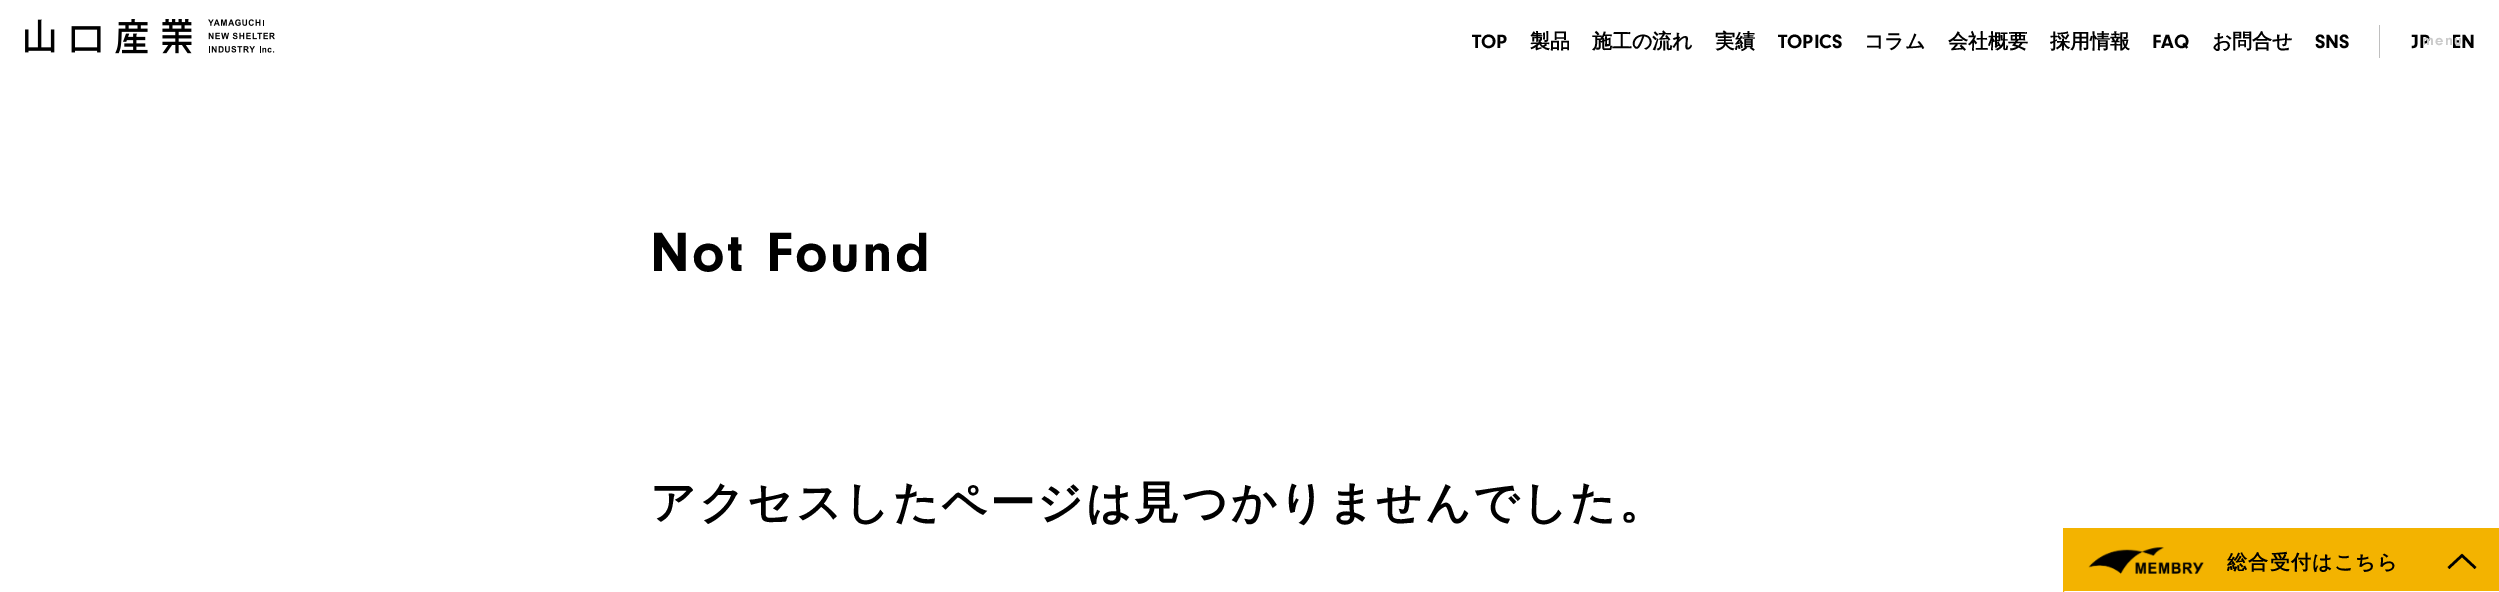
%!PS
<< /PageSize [2499 592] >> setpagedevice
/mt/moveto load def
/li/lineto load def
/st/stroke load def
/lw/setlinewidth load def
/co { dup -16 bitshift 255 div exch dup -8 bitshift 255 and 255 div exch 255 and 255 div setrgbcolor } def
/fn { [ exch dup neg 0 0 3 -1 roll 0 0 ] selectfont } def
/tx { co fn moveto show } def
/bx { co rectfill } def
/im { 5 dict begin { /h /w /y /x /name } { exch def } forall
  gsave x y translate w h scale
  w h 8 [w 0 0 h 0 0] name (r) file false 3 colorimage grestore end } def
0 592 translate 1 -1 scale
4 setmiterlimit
0 0 2499 592 16#FFFFFF bx
(media/1.raw) 25 19 250 35 im
2379 25 1 33 16#BFBFBF bx
16#F3B300 co
2063.5 528.5 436 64 rectstroke
2064 529 435 62 16#F3B300 bx
(media/2.raw) 2088 547 116 27 im
16#000000 co
2.5 lw
2448.5 568 mt 2462 555.5 li 2475.5 568 li st
(TOP) 1472 48 /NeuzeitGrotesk-Bold 20 16#000000 tx
(製品) 1530 48 /WenQuanYiZenHei-Bold 20 16#000000 tx
(施工の流れ) 1592 48 /WenQuanYiZenHei-Bold 20 16#000000 tx
(実績) 1715 48 /WenQuanYiZenHei-Bold 20 16#000000 tx
(TOPICS) 1778 48 /NeuzeitGrotesk-Bold 20 16#000000 tx
(コラム) 1864 48 /WenQuanYiZenHei-Bold 20 16#000000 tx
(会社概要) 1948 48 /WenQuanYiZenHei-Bold 20 16#000000 tx
(採用情報) 2050 48 /WenQuanYiZenHei-Bold 20 16#000000 tx
(FAQ) 2152 48 /NeuzeitGrotesk-Bold 20 16#000000 tx
(お問合せ) 2212 48 /WenQuanYiZenHei-Bold 20 16#000000 tx
(SNS) 2315 48 /NeuzeitGrotesk-Bold 20 16#000000 tx
(JP) 2411 48 /NeuzeitGrotesk-Bold 20 16#000000 tx
(EN) 2452 48 /NeuzeitGrotesk-Bold 20 16#000000 tx
/NeuzeitGrotesk-Bold 15 fn
16#CBCBCB co
2422 45 mt 1.25 0 (menu) ashow
/NeuzeitGrotesk-Bold 57.5 fn
16#000000 co
650 271 mt 2.5 0 (Not Found) ashow
/WenQuanYiZenHei-Bold 45 fn
650 518 mt 2.5 0 (アクセスしたページは見つかりませんでした。) ashow
/WenQuanYiZenHei-Bold 20 fn
2227 569 mt 1.25 0 (総合受付はこちら) ashow
showpage
